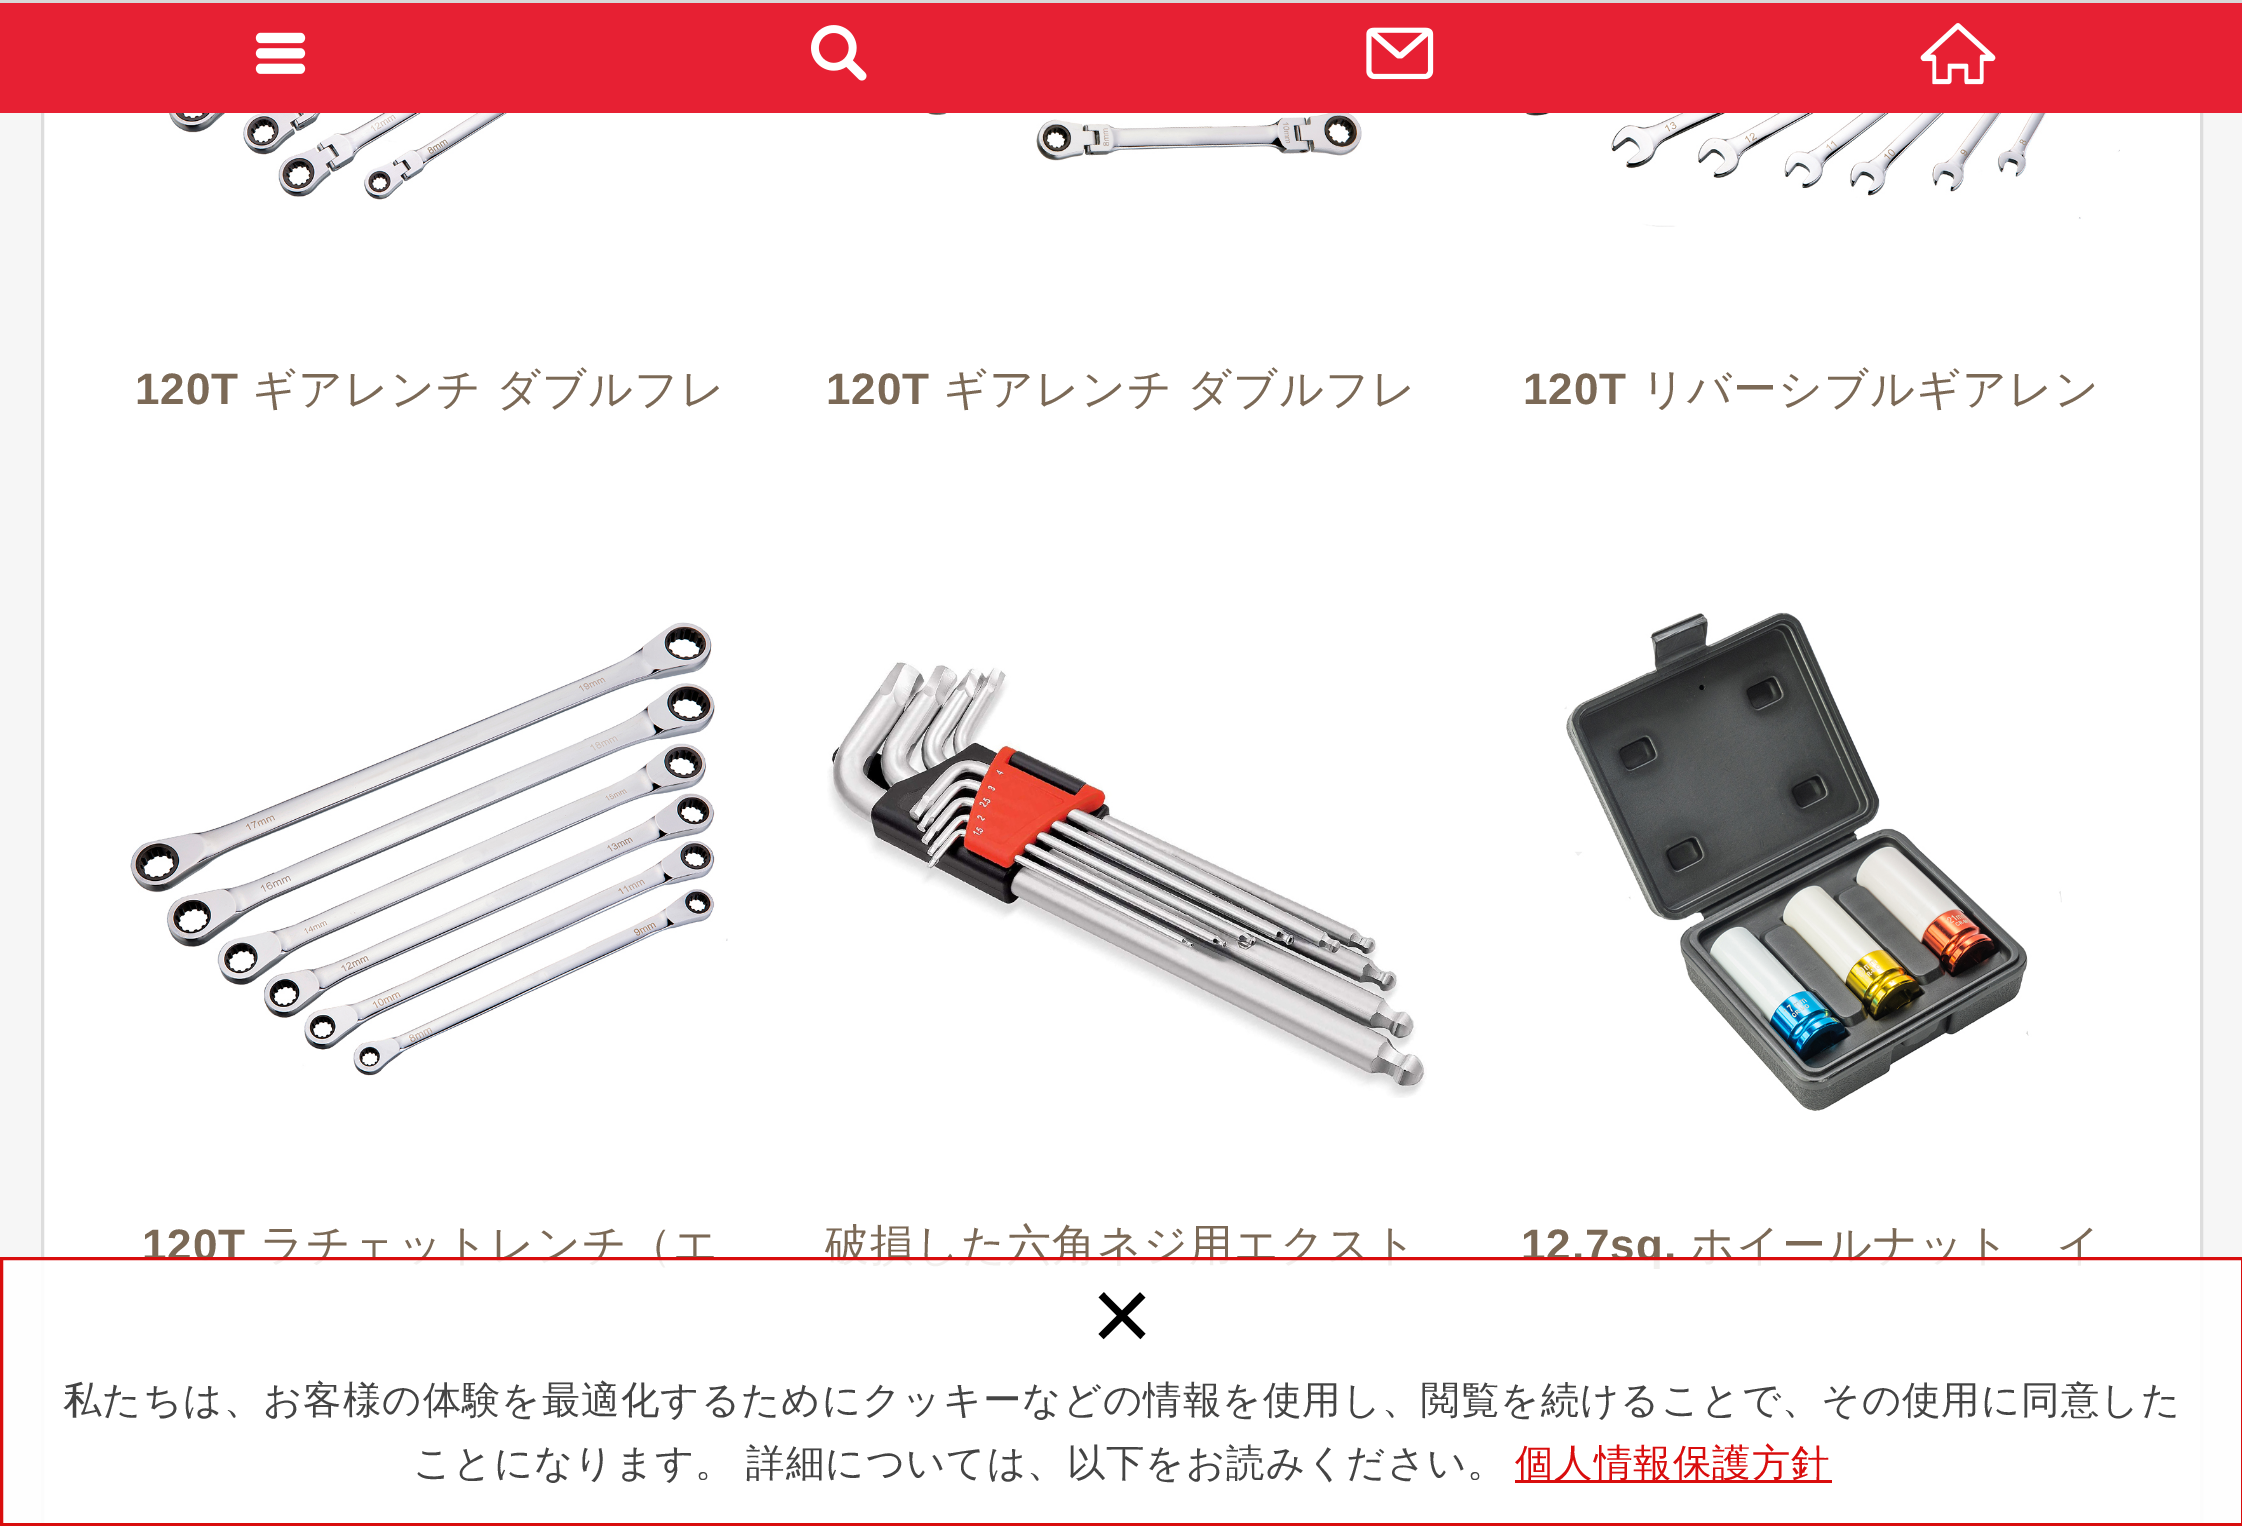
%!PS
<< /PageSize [2242 1526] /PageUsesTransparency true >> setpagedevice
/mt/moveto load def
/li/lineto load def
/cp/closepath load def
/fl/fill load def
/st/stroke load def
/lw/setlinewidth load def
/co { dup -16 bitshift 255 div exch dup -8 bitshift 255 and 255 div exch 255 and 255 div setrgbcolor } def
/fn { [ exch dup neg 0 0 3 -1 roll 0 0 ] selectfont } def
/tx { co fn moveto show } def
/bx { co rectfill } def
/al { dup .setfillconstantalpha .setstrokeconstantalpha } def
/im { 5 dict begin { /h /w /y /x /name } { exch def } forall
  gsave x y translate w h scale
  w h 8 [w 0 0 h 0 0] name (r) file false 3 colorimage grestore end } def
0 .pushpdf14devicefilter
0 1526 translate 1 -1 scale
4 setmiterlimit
0 0 2242 1526 16#F6F6F6 bx
44 113 2156 1410 16#FFFFFF bx
16#DDDDDD co
3 lw
42.5 -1.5 2159 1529 rectstroke
0 0 2242 3 16#D8D8D8 bx
0 110 2242 3 16#E72033 bx
0 3 2242 107 16#E72033 bx
(media/1.raw) 255 32 51 42 im
(media/2.raw) 811 25 56 56 im
(media/3.raw) 1366 27 68 53 im
(media/4.raw) 1920 23 76 62 im
(media/5.raw) 137 113 533 87 im
(media/6.raw) 911 113 476 48 im
(media/7.raw) 1505 113 615 114 im
(media/8.raw) 130 622 598 454 im
(media/9.raw) 827 660 600 438 im
(media/10.raw) 1564 612 498 499 im
/LiberationSans-Bold 44 fn
16#7B6956 co
135 404 mt .95 0 (120T) ashow
/WenQuanYiZenHei-Medium 44 fn
252 404 mt .95 0 (ギアレンチ ダブルフレ) ashow
/LiberationSans-Bold 44 fn
826 404 mt .95 0 (120T) ashow
/WenQuanYiZenHei-Medium 44 fn
943 404 mt .95 0 (ギアレンチ ダブルフレ) ashow
/LiberationSans-Bold 44 fn
1523 404 mt .95 0 (120T) ashow
/WenQuanYiZenHei-Medium 44 fn
1641 404 mt .95 0 (リバーシブルギアレン) ashow
/LiberationSans-Bold 44 fn
142 1260 mt .95 0 (120T) ashow
/WenQuanYiZenHei-Medium 44 fn
260 1260 mt .95 0 (ラチェットレンチ（エ) ashow
825 1260 mt .95 0 (破損した六角ネジ用エクスト) ashow
/LiberationSans-Bold 44 fn
1521 1260 mt .95 0 (12.7sq.) ashow
/WenQuanYiZenHei-Medium 44 fn
1690 1260 mt .95 0 (ホイールナット　イ) ashow
0.9 al
16#FFFFFF co
1.5 1258.5 mt 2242.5 1258.5 li 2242.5 1524.5 li 1.5 1524.5 li cp fl
1 al
16#D90D0D co
1.5 1258.5 mt 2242.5 1258.5 li 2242.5 1524.5 li 1.5 1524.5 li cp st
(×) 1091 1351 /LiberationSans-Regular 106 16#000000 tx
/WenQuanYiZenHei-Medium 38.5 fn
16#444444 co
63 1413 mt .95 0 (私たちは、お客様の体験を最適化するためにクッキーなどの情報を使用し、閲覧を続けることで、その使用に同意した) ashow
413 1476 mt -1 0 32 .95 0 (ことになります。 詳細については、以下をお読みください。) awidthshow
1515 1480 317 3 16#D90D0D bx
1515 1476 mt .95 0 (個人情報保護方針) ashow
.poppdf14devicefilter showpage
